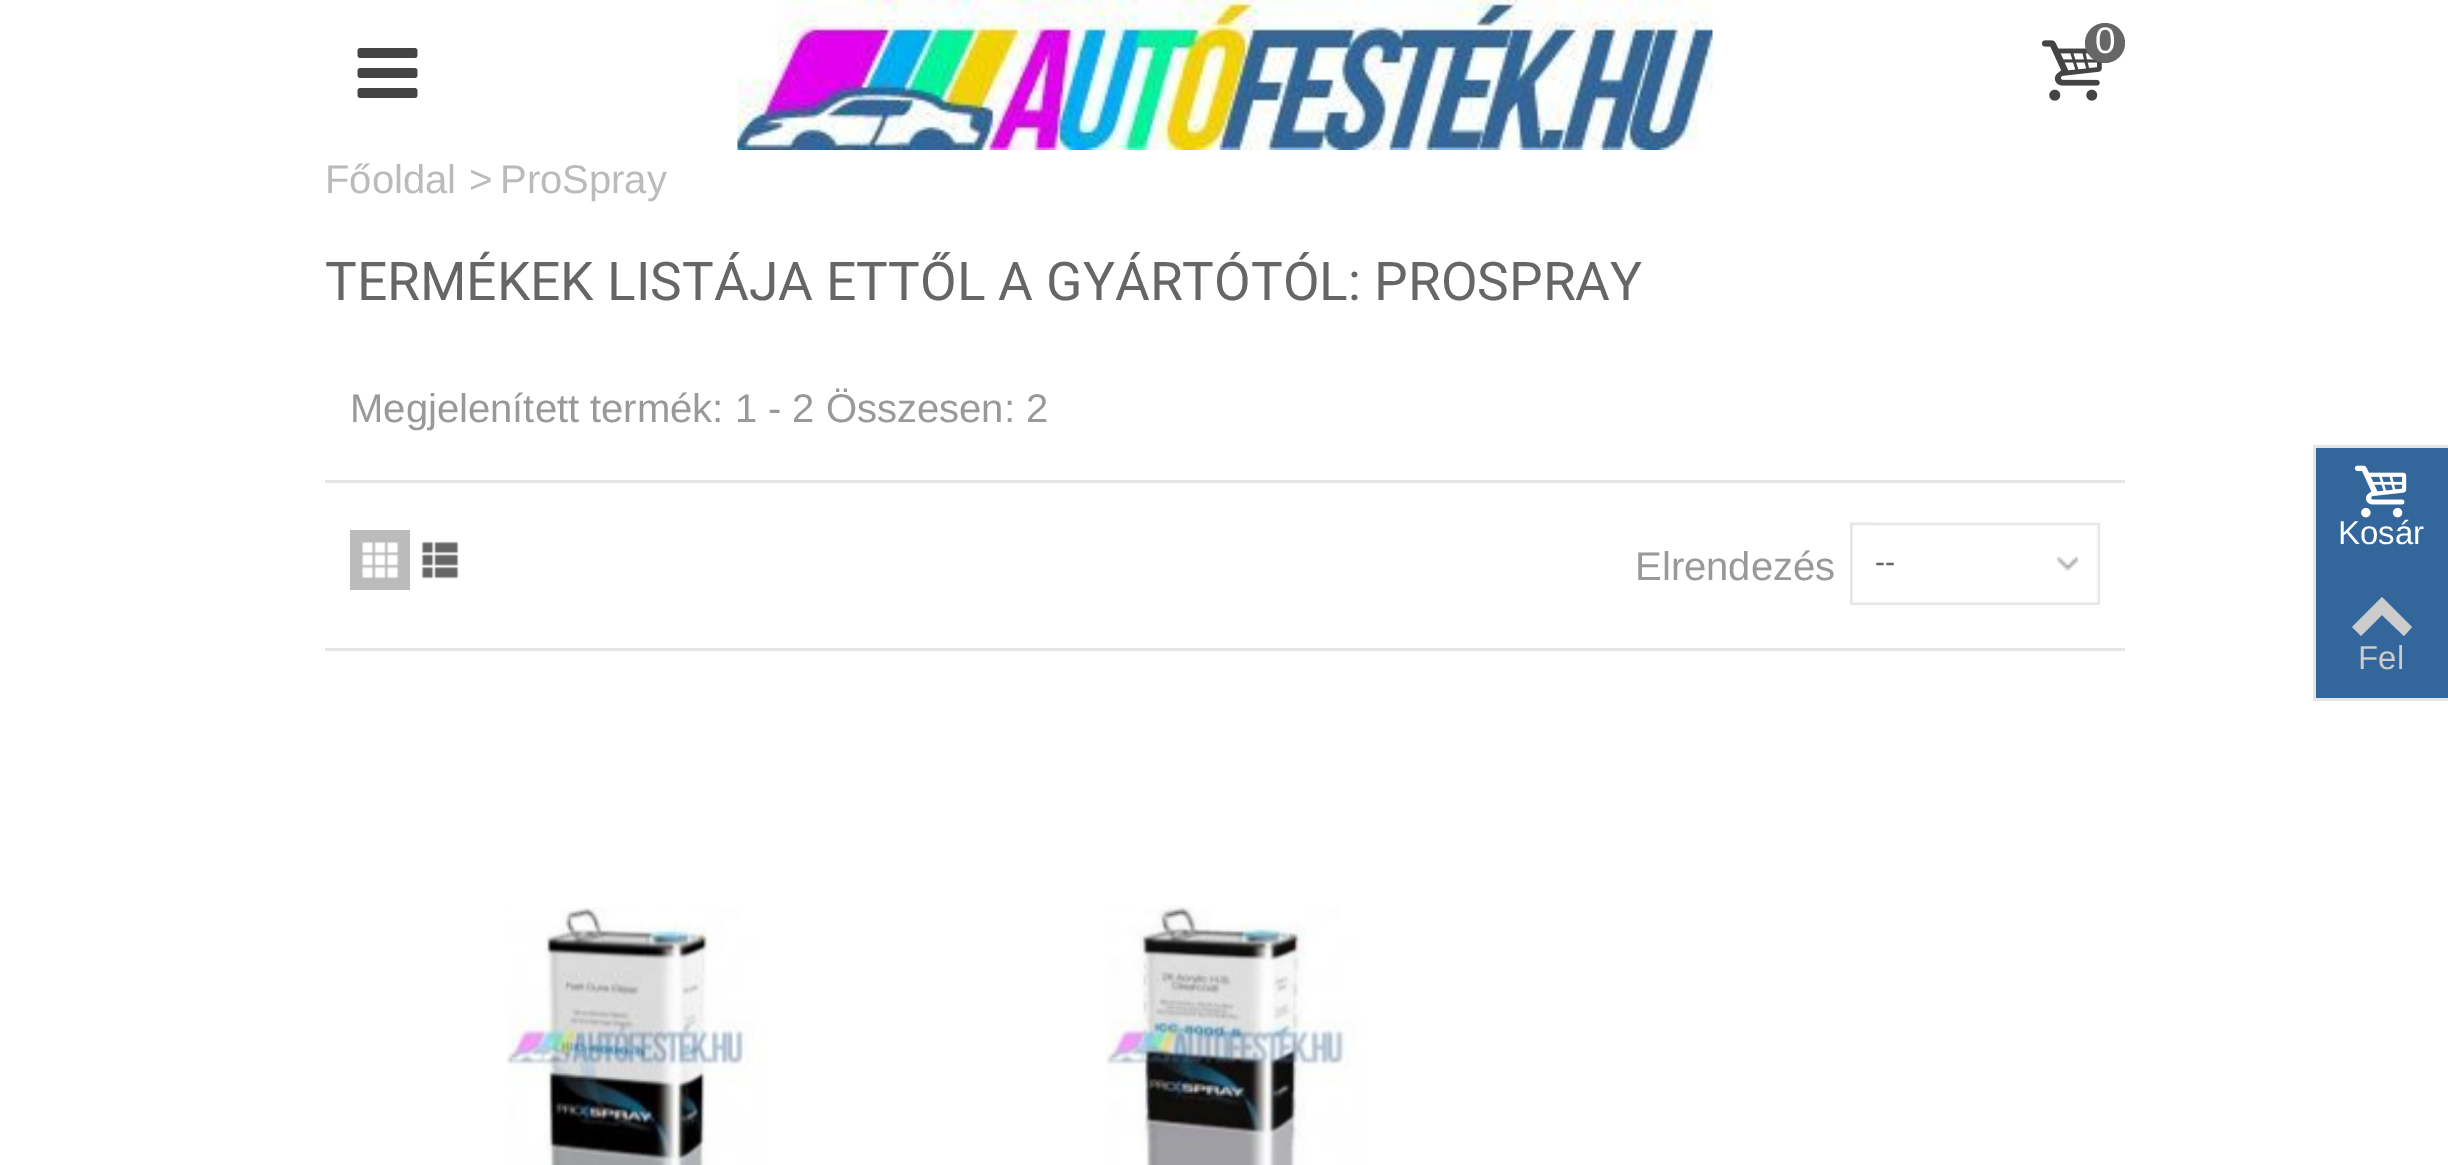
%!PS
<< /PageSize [2448 1165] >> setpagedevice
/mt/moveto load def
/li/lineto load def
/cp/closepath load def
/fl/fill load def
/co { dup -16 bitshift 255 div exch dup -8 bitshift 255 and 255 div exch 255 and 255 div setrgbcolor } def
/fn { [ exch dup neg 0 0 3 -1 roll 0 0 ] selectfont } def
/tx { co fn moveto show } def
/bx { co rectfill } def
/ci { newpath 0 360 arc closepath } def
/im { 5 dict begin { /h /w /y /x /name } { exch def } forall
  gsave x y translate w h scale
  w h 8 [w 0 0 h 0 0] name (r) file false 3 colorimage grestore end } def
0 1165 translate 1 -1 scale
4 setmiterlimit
0 0 2448 1165 16#FFFFFF bx
(media/1.raw) 737 0 976 150 im
(media/2.raw) 2041 40 61 61 im
16#666666 co
2105 43 20 ci fl
(media/3.raw) 357 48 61 50 im
325 480 1800 3 16#E5E5E5 bx
325 648 1800 3 16#E5E5E5 bx
350 530 60 60 16#BBBBBB bx
(media/4.raw) 362 542 37 37 im
(media/5.raw) 421 541 38 38 im
(media/6.raw) 1850 522 26 83 im
(media/7.raw) 1875 522 225 83 im
(media/8.raw) 506 907 262 258 im
(media/9.raw) 1105 905 262 260 im
2316 448 132 250 16#33669A bx
2313 445 135 3 16#E5E5E5 bx
2313 698 135 3 16#E5E5E5 bx
2313 448 3 250 16#E5E5E5 bx
(media/10.raw) 2354 465 53 53 im
16#CCCCCC co
2352 627 mt 2382 597 li 2412 627 li 2404 636 li 2382 615 li 2361 636 li cp fl
(0) 2095 53 /LiberationSans-Regular 37 16#FFFFFF tx
(Főoldal) 325 193 /LiberationSans-Regular 40 16#BBBBBB tx
(>) 469 193 /LiberationSans-Regular 40 16#BBBBBB tx
(ProSpray) 500 193 /LiberationSans-Regular 40 16#BBBBBB tx
(TERMÉKEK LISTÁJA ETTŐL A GYÁRTÓTÓL: PROSPRAY) 325 300 /Roboto-Regular 53.3 16#666666 tx
(Megjelenített termék: 1 - 2 Összesen: 2) 350 422 /LiberationSans-Regular 40 16#999999 tx
(Elrendezés) 1635 580 /LiberationSans-Regular 40 16#999999 tx
(--) 1875 572 /LiberationSans-Regular 30 16#666666 tx
(Kosár) 2338 544 /LiberationSans-Regular 33 16#FFFFFF tx
(Fel) 2358 669 /LiberationSans-Regular 33 16#CCCCCC tx
showpage
